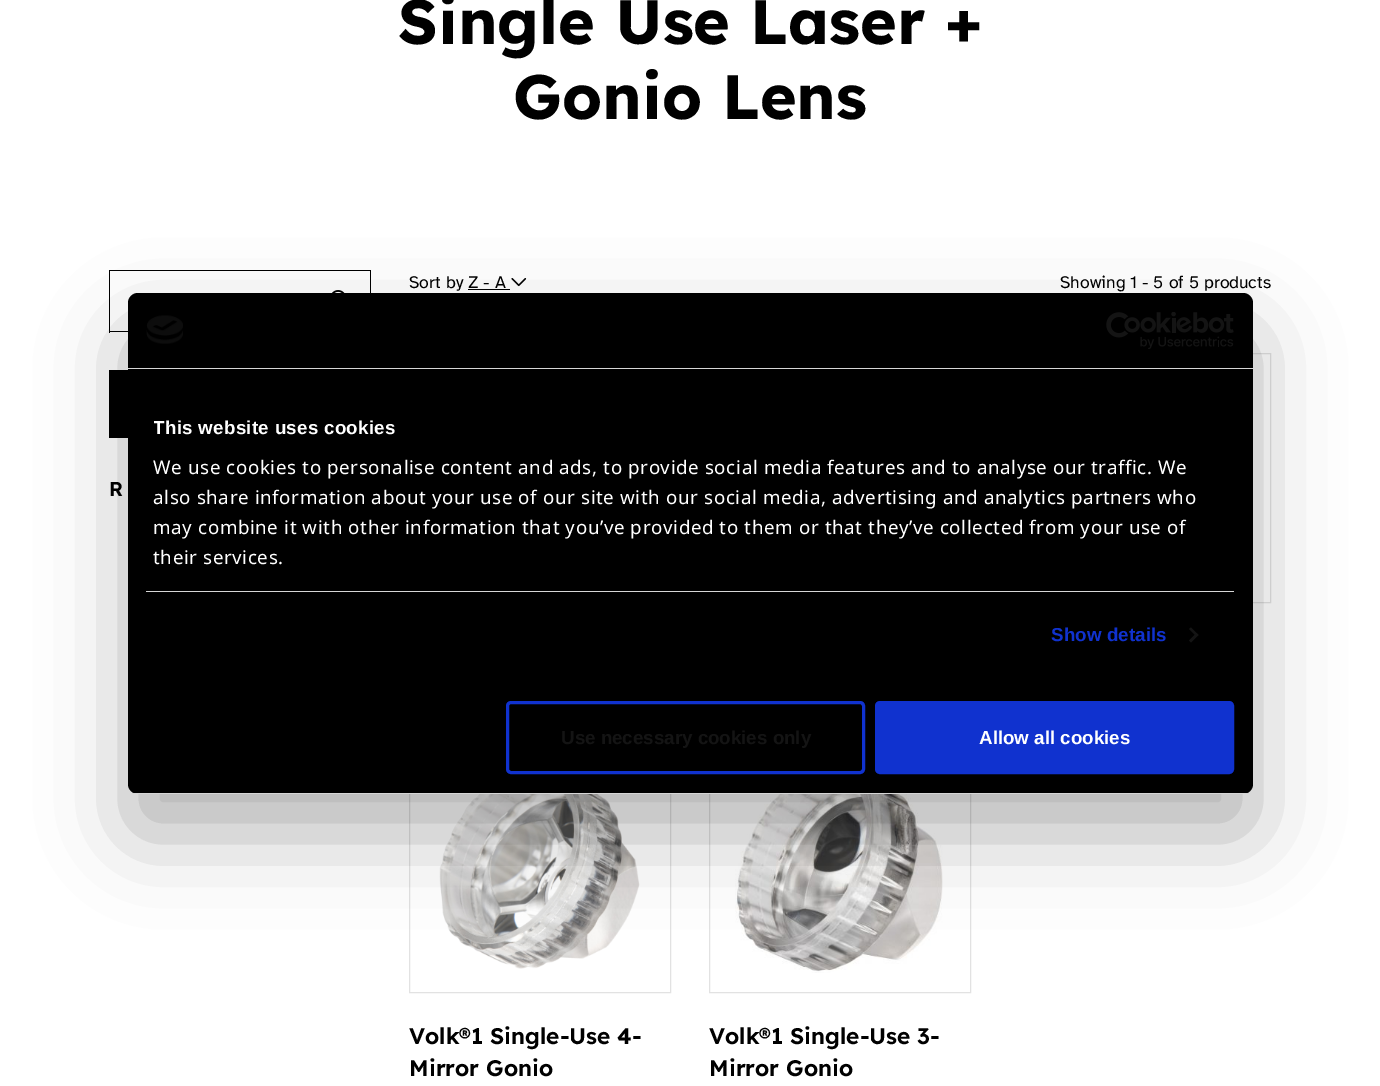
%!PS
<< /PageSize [1380 1086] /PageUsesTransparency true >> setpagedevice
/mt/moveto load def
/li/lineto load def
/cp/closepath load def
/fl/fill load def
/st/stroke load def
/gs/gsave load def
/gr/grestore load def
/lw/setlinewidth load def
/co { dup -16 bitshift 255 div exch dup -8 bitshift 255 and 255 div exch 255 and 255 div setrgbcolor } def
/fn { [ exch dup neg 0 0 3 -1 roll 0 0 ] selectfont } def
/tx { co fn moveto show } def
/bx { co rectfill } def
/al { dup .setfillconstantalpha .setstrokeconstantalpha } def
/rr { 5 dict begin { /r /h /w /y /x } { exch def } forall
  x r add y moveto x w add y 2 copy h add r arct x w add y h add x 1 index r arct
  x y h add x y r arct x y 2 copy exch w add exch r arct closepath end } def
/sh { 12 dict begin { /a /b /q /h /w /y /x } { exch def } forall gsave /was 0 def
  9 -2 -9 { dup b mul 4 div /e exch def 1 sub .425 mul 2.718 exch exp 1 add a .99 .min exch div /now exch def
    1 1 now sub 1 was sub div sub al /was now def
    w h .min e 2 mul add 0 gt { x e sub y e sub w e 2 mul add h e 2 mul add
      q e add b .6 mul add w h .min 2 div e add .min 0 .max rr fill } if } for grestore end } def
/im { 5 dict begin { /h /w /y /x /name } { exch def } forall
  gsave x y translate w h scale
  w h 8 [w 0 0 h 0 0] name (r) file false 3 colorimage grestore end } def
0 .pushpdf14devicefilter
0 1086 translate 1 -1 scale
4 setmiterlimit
0 0 1380 1086 16#FFFFFF bx
109 270 262 1 16#000000 bx
109 331 19 1 16#000000 bx
109 270 1 63 16#000000 bx
370 270 1 23 16#000000 bx
(media/1.raw) 332 290 13 3 im
109 370 19 68 16#000000 bx
(media/2.raw) 511 278 16 9 im
468 289 42 1 16#000000 bx
16#E2E2E2 co
1009.5 353.5 261 249 rectstroke
409.5 743.5 261 249 rectstroke
(media/3.raw) 439 794 201 175 im
709.5 743.5 261 249 rectstroke
(media/4.raw) 735 794 208 179 im
16#000000 co
128 333 1125 501 10 42.5 .3 sh
128 293 1125 501 10 rr fl
128 368 1125 1 16#D6D6D6 bx
(media/5.raw) 146 315 37 29 im
(media/6.raw) 1106 312 128 37 im
146 591 1088 1 16#D6D6D6 bx
16#141414 co
1191 627.5 mt 1198.5 635 li 1196.5 636.5 li 1189 629 li cp fl
1196.5 633 mt 1198.5 635 li 1191 642.5 li 1189 640.5 li cp fl
gs
128 293 1125 501 10 rr clip newpath
128 793 1125 1 16#D6D6D6 bx
gr
16#1032CF co
3 lw
507.5 702.5 356 70 3.5 rr st
876.5 702.5 356 70 3.5 rr gs fl gr
st
(Single Use Laser +) 398 44 /Lexend-Bold 62.5 16#000000 tx
(Gonio Lens) 513 119 /Lexend-Bold 62.5 16#000000 tx
(R) 109 496 /Lexend-SemiBold 20 16#000000 tx
(Sort by Z - A) 409 288 /AtkinsonHyperlegible-Regular 17.5 16#000000 tx
(Showing 1 - 5 of 5 products) 1060 288 /AtkinsonHyperlegible-Regular 17.5 16#000000 tx
(Volk®1 Single-Use 4-) 409 1044 /Lexend-SemiBold 22.5 16#000000 tx
(Mirror Gonio) 409 1076 /Lexend-SemiBold 22.5 16#000000 tx
(Volk®1 Single-Use 3-) 709 1044 /Lexend-SemiBold 22.5 16#000000 tx
(Mirror Gonio) 709 1076 /Lexend-SemiBold 22.5 16#000000 tx
gs
154 400 1072 185 rectclip
/LiberationSans-Bold 18.75 fn
16#FFFFFF co
153 434 mt .3 0 (This website uses cookies) ashow
gr
/NotoSans-Regular 18.75 fn
16#FFFFFF co
153 474 mt .62 0 (We use cookies to personalise content and ads, to provide social media features and to analyse our traffic. We) ashow
153 504 mt .62 0 (also share information about your use of our site with our social media, advertising and analytics partners who) ashow
153 534 mt .62 0 (may combine it with other information that you’ve provided to them or that they’ve collected from your use of) ashow
153 564 mt .62 0 (their services.) ashow
/LiberationSans-Bold 18.75 fn
16#1032CF co
1051 641 mt .1 0 (Show details) ashow
(Use necessary cookies only) 561 744 /LiberationSans-Bold 18.75 16#141414 tx
(Allow all cookies) 979 744 /LiberationSans-Bold 18.75 16#FFFFFF tx
.poppdf14devicefilter showpage
